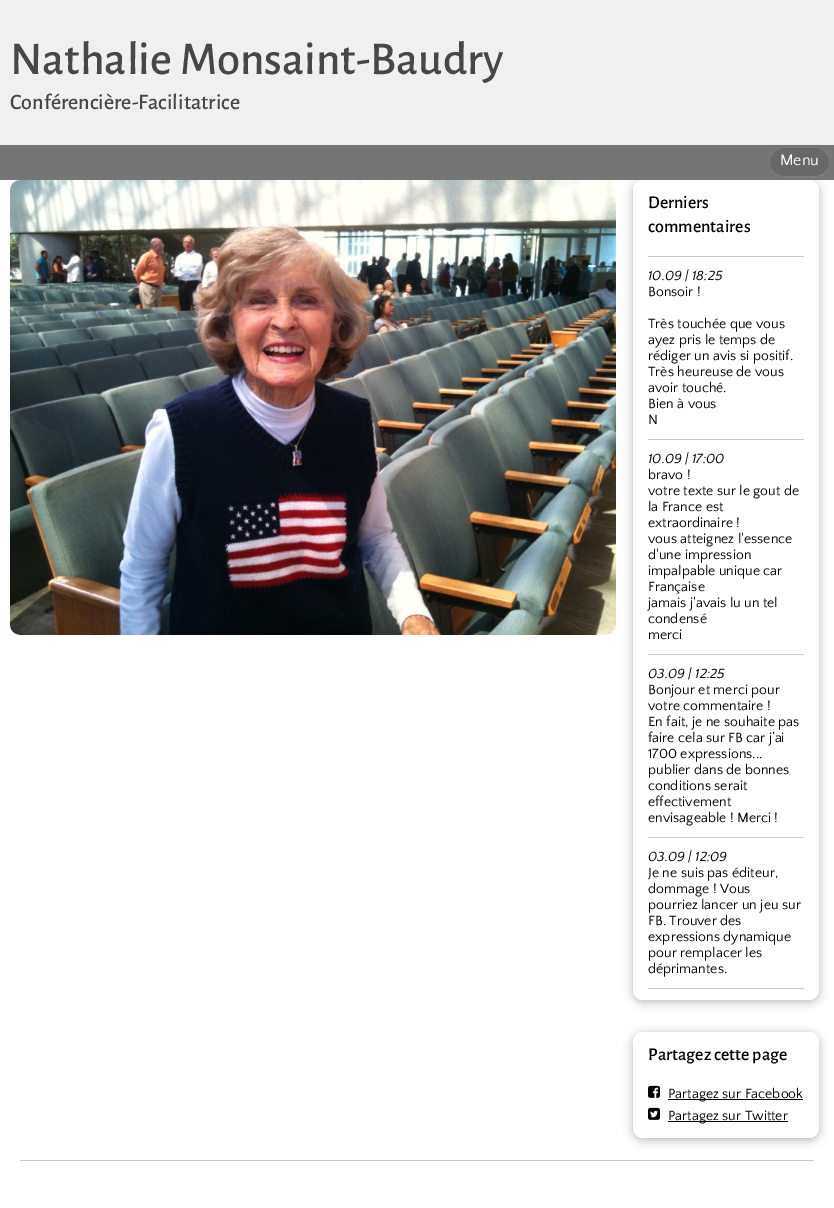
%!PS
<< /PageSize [834 1208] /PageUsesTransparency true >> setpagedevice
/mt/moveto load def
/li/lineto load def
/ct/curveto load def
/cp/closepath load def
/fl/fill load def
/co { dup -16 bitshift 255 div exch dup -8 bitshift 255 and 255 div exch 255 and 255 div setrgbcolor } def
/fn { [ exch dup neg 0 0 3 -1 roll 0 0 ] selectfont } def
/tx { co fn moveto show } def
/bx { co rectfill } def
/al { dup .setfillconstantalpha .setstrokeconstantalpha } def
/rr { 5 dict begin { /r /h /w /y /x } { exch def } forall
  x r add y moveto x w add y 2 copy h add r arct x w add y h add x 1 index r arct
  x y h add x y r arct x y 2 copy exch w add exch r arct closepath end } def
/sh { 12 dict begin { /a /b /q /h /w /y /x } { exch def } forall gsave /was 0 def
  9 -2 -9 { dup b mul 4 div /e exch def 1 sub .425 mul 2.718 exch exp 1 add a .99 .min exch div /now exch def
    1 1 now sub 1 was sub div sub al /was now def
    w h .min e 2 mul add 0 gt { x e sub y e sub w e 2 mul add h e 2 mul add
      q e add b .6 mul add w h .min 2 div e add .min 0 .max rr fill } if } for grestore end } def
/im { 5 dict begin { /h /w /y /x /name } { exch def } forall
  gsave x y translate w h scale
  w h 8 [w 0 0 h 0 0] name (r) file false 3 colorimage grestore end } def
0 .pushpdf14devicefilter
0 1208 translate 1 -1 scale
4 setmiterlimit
0 0 834 1208 16#FFFFFF bx
0 0 834 145 16#F0F0F0 bx
16#000000 co
633 182 186 820 10 5 .29 sh
0 145 834 35 16#757575 bx
16#7F7F7F co
770 162 mt 770 165 771 168 772 171 ct 778 179 790 177 800 177 ct 809 177 821 179 827 171 ct 828 168 829 165 829 162 ct 828 179 811 176 800 176 ct 788 176 771 179 770 162 ct cp fl
16#686868 co
770 147 59 29 14.5 rr fl
0.1 al
16#FFFFFF co
784 148 mt 814 148 li 823 148 829 154 829 162 ct 829 159 828 156 827 153 ct 821 145 809 147 800 147 ct 790 147 778 145 772 153 ct 771 156 770 159 770 162 ct 770 154 776 148 784 148 ct cp fl
1 al
(media/1.raw) 10 180 606 455 im
633 180 186 820 10 rr fl
648 256 156 1 16#CCCCCC bx
648 439 156 1 16#CCCCCC bx
648 654 156 1 16#CCCCCC bx
648 837 156 1 16#CCCCCC bx
648 988 156 1 16#CCCCCC bx
16#000000 co
633 1034 186 106 10 5 .29 sh
16#FFFFFF co
633 1032 186 106 10 rr fl
(media/2.raw) 648 1085 12 13 im
668 1099 135 1 16#000000 bx
(media/3.raw) 648 1107 12 13 im
668 1121 120 1 16#000000 bx
20 1160 794 1 16#CCCCCC bx
(Nathalie Monsaint-Baudry) 10 74 /AlegreyaSans-Medium 47 16#474747 tx
(Conférencière-Facilitatrice) 10 109 /AlegreyaSans-Medium 22 16#474747 tx
(Menu) 780 165 /QuattrocentoSans-Regular 16 16#FFFFFF tx
(Derniers) 648 208 /AlegreyaSans-Medium 18 16#000000 tx
(commentaires) 648 232 /AlegreyaSans-Medium 18 16#000000 tx
(10.09 | 18:25) 648 280 /QuattrocentoSans-Italic 14 16#000000 tx
(Bonsoir !) 648 296 /QuattrocentoSans-Regular 14 16#000000 tx
(Très touchée que vous) 648 328 /QuattrocentoSans-Regular 14 16#000000 tx
(ayez pris le temps de) 648 344 /QuattrocentoSans-Regular 14 16#000000 tx
(rédiger un avis si positif.) 648 360 /QuattrocentoSans-Regular 14 16#000000 tx
(Très heureuse de vous) 648 376 /QuattrocentoSans-Regular 14 16#000000 tx
(avoir touché.) 648 392 /QuattrocentoSans-Regular 14 16#000000 tx
(Bien à vous) 648 408 /QuattrocentoSans-Regular 14 16#000000 tx
(N) 648 424 /QuattrocentoSans-Regular 14 16#000000 tx
(10.09 | 17:00) 648 463 /QuattrocentoSans-Italic 14 16#000000 tx
(bravo !) 648 479 /QuattrocentoSans-Regular 14 16#000000 tx
(votre texte sur le gout de) 648 495 /QuattrocentoSans-Regular 14 16#000000 tx
(la France est) 648 511 /QuattrocentoSans-Regular 14 16#000000 tx
(extraordinaire !) 648 527 /QuattrocentoSans-Regular 14 16#000000 tx
(vous atteignez l'essence) 648 543 /QuattrocentoSans-Regular 14 16#000000 tx
(d'une impression) 648 559 /QuattrocentoSans-Regular 14 16#000000 tx
(impalpable unique car) 648 575 /QuattrocentoSans-Regular 14 16#000000 tx
(Française) 648 591 /QuattrocentoSans-Regular 14 16#000000 tx
(jamais j'avais lu un tel) 648 607 /QuattrocentoSans-Regular 14 16#000000 tx
(condensé) 648 623 /QuattrocentoSans-Regular 14 16#000000 tx
(merci) 648 639 /QuattrocentoSans-Regular 14 16#000000 tx
(03.09 | 12:25) 648 678 /QuattrocentoSans-Italic 14 16#000000 tx
(Bonjour et merci pour) 648 694 /QuattrocentoSans-Regular 14 16#000000 tx
(votre commentaire !) 648 710 /QuattrocentoSans-Regular 14 16#000000 tx
(En fait, je ne souhaite pas) 648 726 /QuattrocentoSans-Regular 14 16#000000 tx
(faire cela sur FB car j’ai) 648 742 /QuattrocentoSans-Regular 14 16#000000 tx
(1700 expressions...) 648 758 /QuattrocentoSans-Regular 14 16#000000 tx
(publier dans de bonnes) 648 774 /QuattrocentoSans-Regular 14 16#000000 tx
(conditions serait) 648 790 /QuattrocentoSans-Regular 14 16#000000 tx
(effectivement) 648 806 /QuattrocentoSans-Regular 14 16#000000 tx
(envisageable ! Merci !) 648 822 /QuattrocentoSans-Regular 14 16#000000 tx
(03.09 | 12:09) 648 861 /QuattrocentoSans-Italic 14 16#000000 tx
(Je ne suis pas éditeur,) 648 877 /QuattrocentoSans-Regular 14 16#000000 tx
(dommage ! Vous) 648 893 /QuattrocentoSans-Regular 14 16#000000 tx
(pourriez lancer un jeu sur) 648 909 /QuattrocentoSans-Regular 14 16#000000 tx
(FB. Trouver des) 648 925 /QuattrocentoSans-Regular 14 16#000000 tx
(expressions dynamique) 648 941 /QuattrocentoSans-Regular 14 16#000000 tx
(pour remplacer les) 648 957 /QuattrocentoSans-Regular 14 16#000000 tx
(déprimantes.) 648 973 /QuattrocentoSans-Regular 14 16#000000 tx
(Partagez cette page) 648 1060 /AlegreyaSans-Medium 18 16#000000 tx
(Partagez sur Facebook) 668 1098 /QuattrocentoSans-Regular 14 16#000000 tx
(Partagez sur Twitter) 668 1120 /QuattrocentoSans-Regular 14 16#000000 tx
.poppdf14devicefilter showpage
